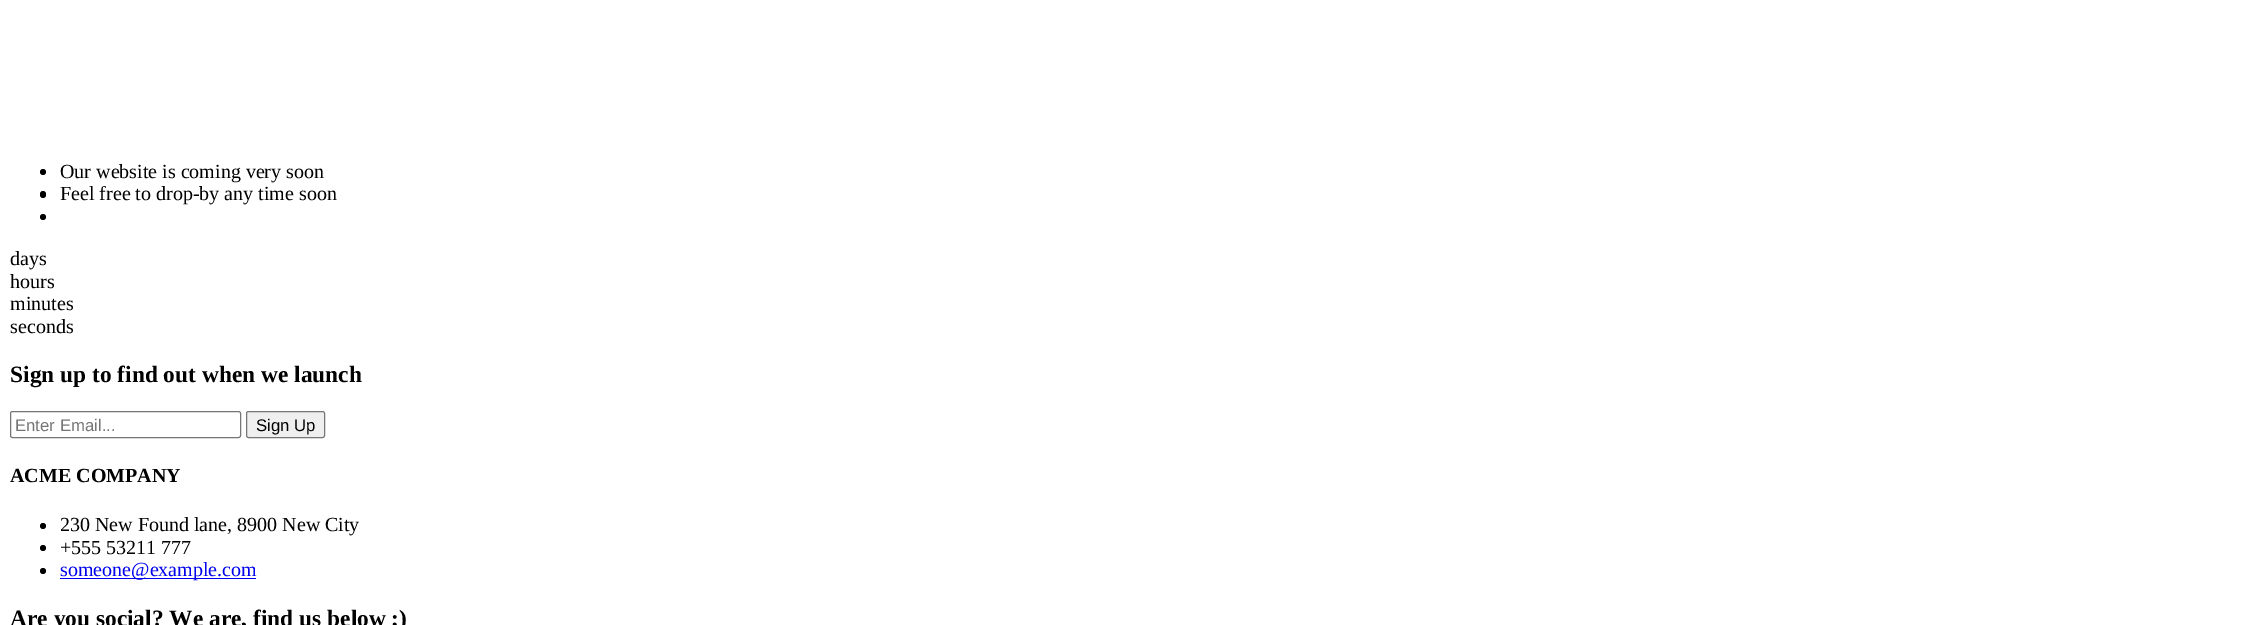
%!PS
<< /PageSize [2268 625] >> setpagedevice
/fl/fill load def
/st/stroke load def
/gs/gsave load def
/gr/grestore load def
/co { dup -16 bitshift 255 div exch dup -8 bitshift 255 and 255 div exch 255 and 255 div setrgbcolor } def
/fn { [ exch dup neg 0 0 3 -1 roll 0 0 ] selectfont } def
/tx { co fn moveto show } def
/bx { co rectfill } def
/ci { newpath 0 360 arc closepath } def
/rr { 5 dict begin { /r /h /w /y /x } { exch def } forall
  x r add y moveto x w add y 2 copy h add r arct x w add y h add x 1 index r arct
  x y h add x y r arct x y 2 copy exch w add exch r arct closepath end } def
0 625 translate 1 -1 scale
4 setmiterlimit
0 0 2268 625 16#FFFFFF bx
16#000000 co
43 172 3 ci fl
40 191 6 7 3 rr fl
43 217 3 ci fl
16#767676 co
10.5 411.5 230 26 2 rr st
16#EFEFEF co
246.5 411.5 78 26 2 rr gs fl gr
16#767676 co
st
16#000000 co
43 526 3 ci fl
43 548 3 ci fl
43 571 3 ci fl
60 578 196 1 16#0000EE bx
(Our website is coming very soon) 60 178 /LiberationSerif-Regular 20 16#000000 tx
(Feel free to drop-by any time soon) 60 200 /LiberationSerif-Regular 20 16#000000 tx
(days) 10 265 /LiberationSerif-Regular 20 16#000000 tx
(hours) 10 288 /LiberationSerif-Regular 20 16#000000 tx
(minutes) 10 310 /LiberationSerif-Regular 20 16#000000 tx
(seconds) 10 333 /LiberationSerif-Regular 20 16#000000 tx
(Sign up to find out when we launch) 10 382 /LiberationSerif-Bold 23.4 16#000000 tx
(Enter Email...) 15 431 /LiberationSans-Regular 16.75 16#757575 tx
(Sign Up) 256 431 /LiberationSans-Regular 16.75 16#000000 tx
(ACME COMPANY) 10 482 /LiberationSerif-Bold 20 16#000000 tx
(230 New Found lane, 8900 New City) 60 531 /LiberationSerif-Regular 20 16#000000 tx
(+555 53211 777) 60 554 /LiberationSerif-Regular 20 16#000000 tx
(someone@example.com) 60 576 /LiberationSerif-Regular 20 16#0000EE tx
(Are you social? We are, find us below ;\)) 10 626 /LiberationSerif-Bold 23.4 16#000000 tx
showpage
